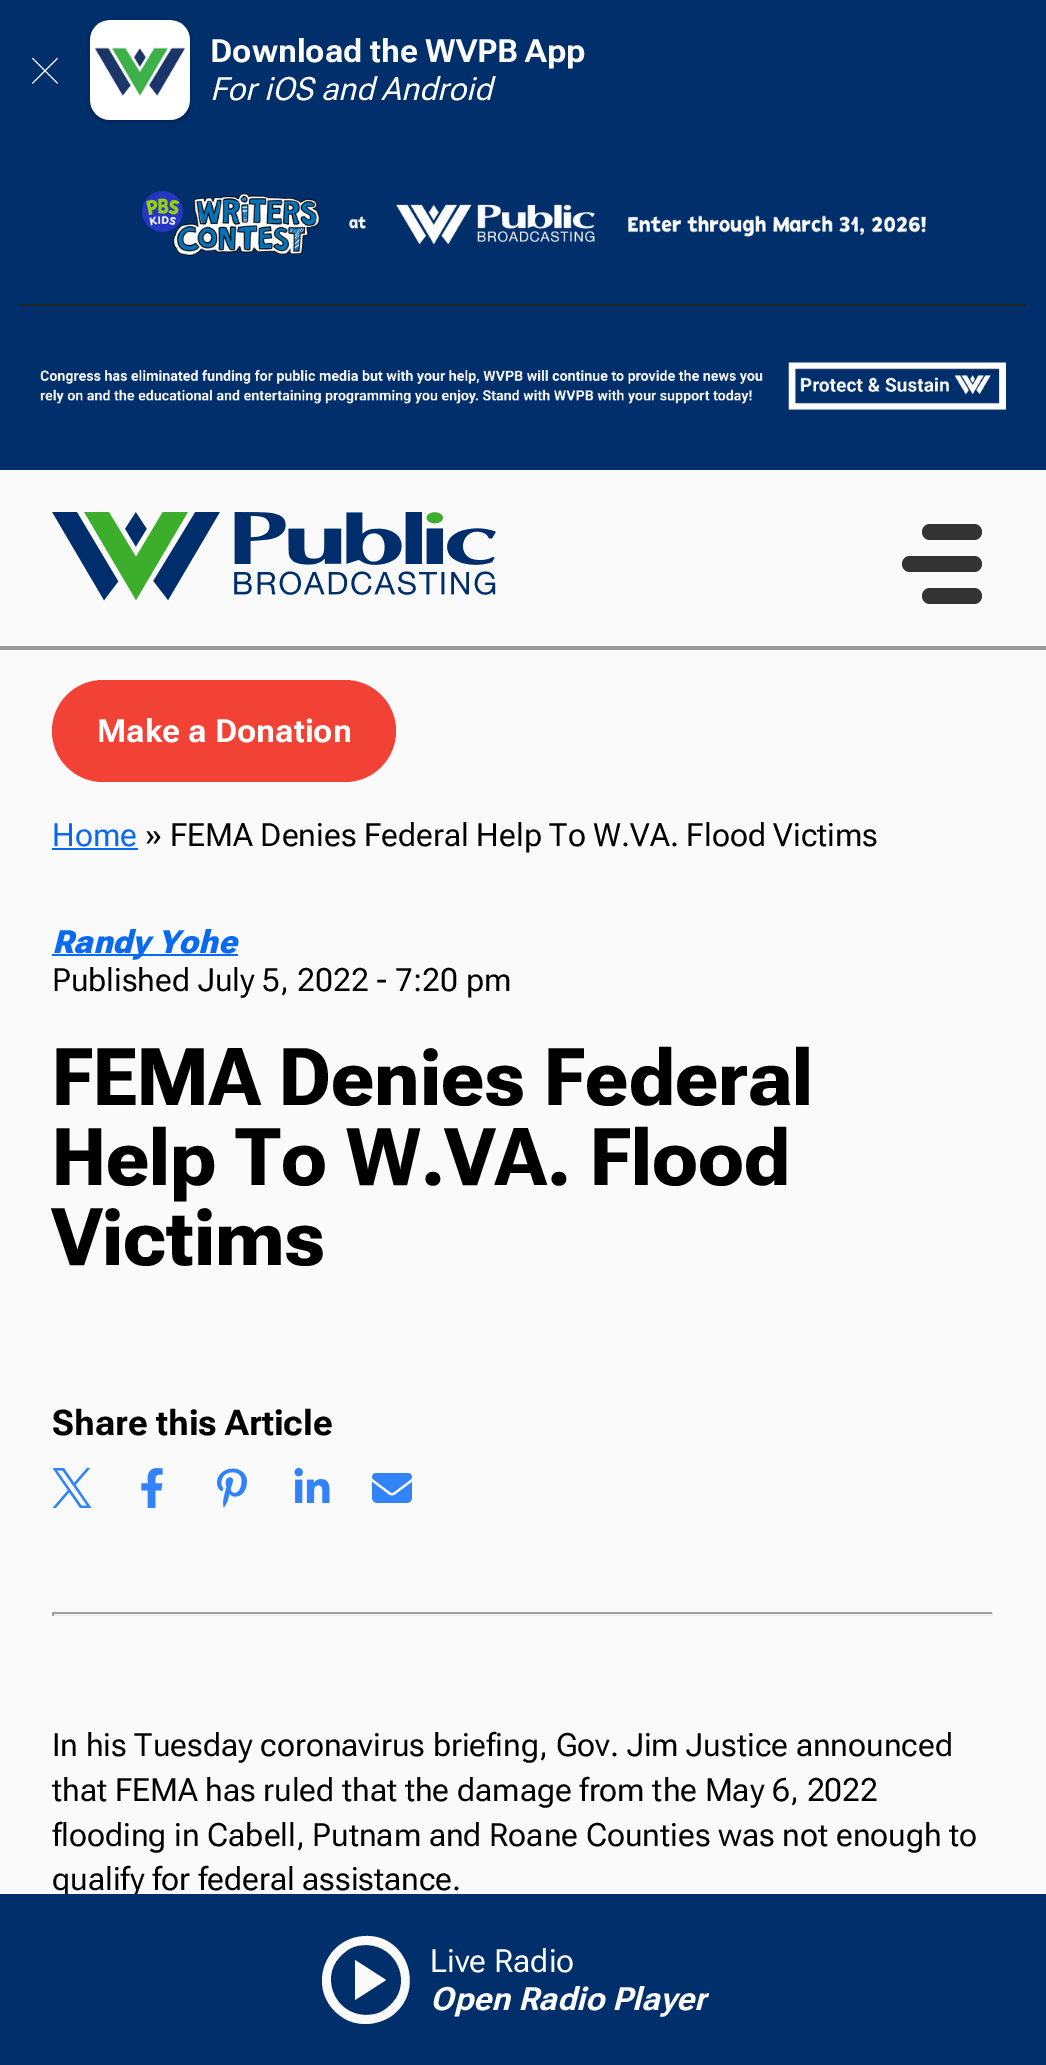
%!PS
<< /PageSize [1046 2065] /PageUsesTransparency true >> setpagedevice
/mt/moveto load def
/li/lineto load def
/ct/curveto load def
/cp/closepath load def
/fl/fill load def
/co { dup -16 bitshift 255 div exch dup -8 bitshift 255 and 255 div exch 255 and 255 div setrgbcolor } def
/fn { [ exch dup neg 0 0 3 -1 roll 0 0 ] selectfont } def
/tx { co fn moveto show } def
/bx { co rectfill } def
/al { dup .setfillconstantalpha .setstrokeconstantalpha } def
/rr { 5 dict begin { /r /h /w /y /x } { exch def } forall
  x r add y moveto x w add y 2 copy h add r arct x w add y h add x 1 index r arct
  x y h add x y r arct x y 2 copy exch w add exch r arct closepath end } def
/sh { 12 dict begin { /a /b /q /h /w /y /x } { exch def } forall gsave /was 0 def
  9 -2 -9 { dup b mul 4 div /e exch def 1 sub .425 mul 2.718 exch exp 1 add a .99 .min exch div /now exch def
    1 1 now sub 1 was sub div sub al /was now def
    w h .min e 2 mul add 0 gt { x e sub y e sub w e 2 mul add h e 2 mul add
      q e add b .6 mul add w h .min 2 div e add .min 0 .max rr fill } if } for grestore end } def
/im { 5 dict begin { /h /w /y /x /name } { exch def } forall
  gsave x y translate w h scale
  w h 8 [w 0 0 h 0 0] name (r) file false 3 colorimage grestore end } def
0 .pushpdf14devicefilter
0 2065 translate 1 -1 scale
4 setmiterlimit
0 0 1046 2065 16#FAFAFA bx
0 0 1046 470 16#002F6C bx
(media/1.raw) 32 57 26 27 im
16#000000 co
90 22 100 100 20 3 .3 sh
(media/2.raw) 90 20 100 100 im
0 646 1046 4 16#999999 bx
(media/3.raw) 141 190 785 66 im
20 304 1006 2 16#212427 bx
(media/4.raw) 40 362 966 49 im
(media/5.raw) 52 512 444 89 im
16#333333 co
922 524 60 16 8 rr fl
902 556 80 16 8 rr fl
922 588 60 16 8 rr fl
16#F24236 co
52 680 344 102 51 rr fl
52 848 86 2 16#096AF1 bx
52 954 186 2 16#096AF1 bx
(media/6.raw) 52 1468 40 40 im
(media/7.raw) 141 1468 22 40 im
(media/8.raw) 217 1468 30 40 im
(media/9.raw) 294 1468 36 35 im
(media/10.raw) 372 1473 40 30 im
52 1612 942 2 16#9F9F9F bx
992 1612 2 4 16#EEEEEE bx
52 1614 942 2 16#EEEEEE bx
52 1612 2 4 16#9F9F9F bx
/RobotoFlex-Bold 32 fn
16#FFFFFF co
210 62 mt -.5 0 32 (Download the WVPB App) widthshow
(For iOS and Android) 210 100 /RobotoFlex-Italic 32 16#FFFFFF tx
(Make a Donation) 97 742 /RobotoFlex-Bold 32 16#FFFFFF tx
(Home) 52 846 /RobotoFlex-Regular 32 16#096AF1 tx
(» FEMA Denies Federal Help To W.VA. Flood Victims) 145 846 /RobotoFlex-Regular 32 16#000000 tx
(Randy Yohe) 52 953 /RobotoFlex-BlackItalic 32 16#096AF1 tx
(Published July 5, 2022 - 7:20 pm) 52 991 /RobotoFlex-Regular 32 16#000000 tx
(FEMA Denies Federal) 52 1105 /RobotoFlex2-Bold 80 16#000000 tx
(Help To W.VA. Flood) 52 1185 /RobotoFlex2-Bold 80 16#000000 tx
(Victims) 52 1265 /RobotoFlex2-Bold 80 16#000000 tx
(Share this Article) 52 1435 /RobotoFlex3-Bold 35.25 16#000000 tx
(In his Tuesday coronavirus briefing, Gov. Jim Justice announced) 52 1756 /RobotoFlex-Regular 32 16#000000 tx
(that FEMA has ruled that the damage from the May 6, 2022) 52 1801 /RobotoFlex-Regular 32 16#000000 tx
(flooding in Cabell, Putnam and Roane Counties was not enough to) 52 1846 /RobotoFlex-Regular 32 16#000000 tx
(qualify for federal assistance.) 52 1890 /RobotoFlex-Regular 32 16#000000 tx
0 1894 1046 171 16#002F6C bx
16#FAFAFA co
355 2000 mt 386 1980 li 355 1960 li cp 366 2024 mt 357 2024 349 2022 342 2017 ct 305 1992 323 1937 366 1936 ct 408 1935 427 1992 390 2017 ct 383 2021 375 2024 366 2024 ct cp 366 2015 mt 374 2015 382 2013 388 2007 ct 414 1987 399 1945 366 1945 ct 358 1945 350 1947 344 1953 ct 318 1973 333 2015 366 2015 ct cp fl
(Live Radio) 430 1972 /RobotoFlex-Regular 32 16#FFFFFF tx
(Open Radio Player) 430 2010 /RobotoFlex-BoldItalic 32 16#FFFFFF tx
.poppdf14devicefilter showpage
